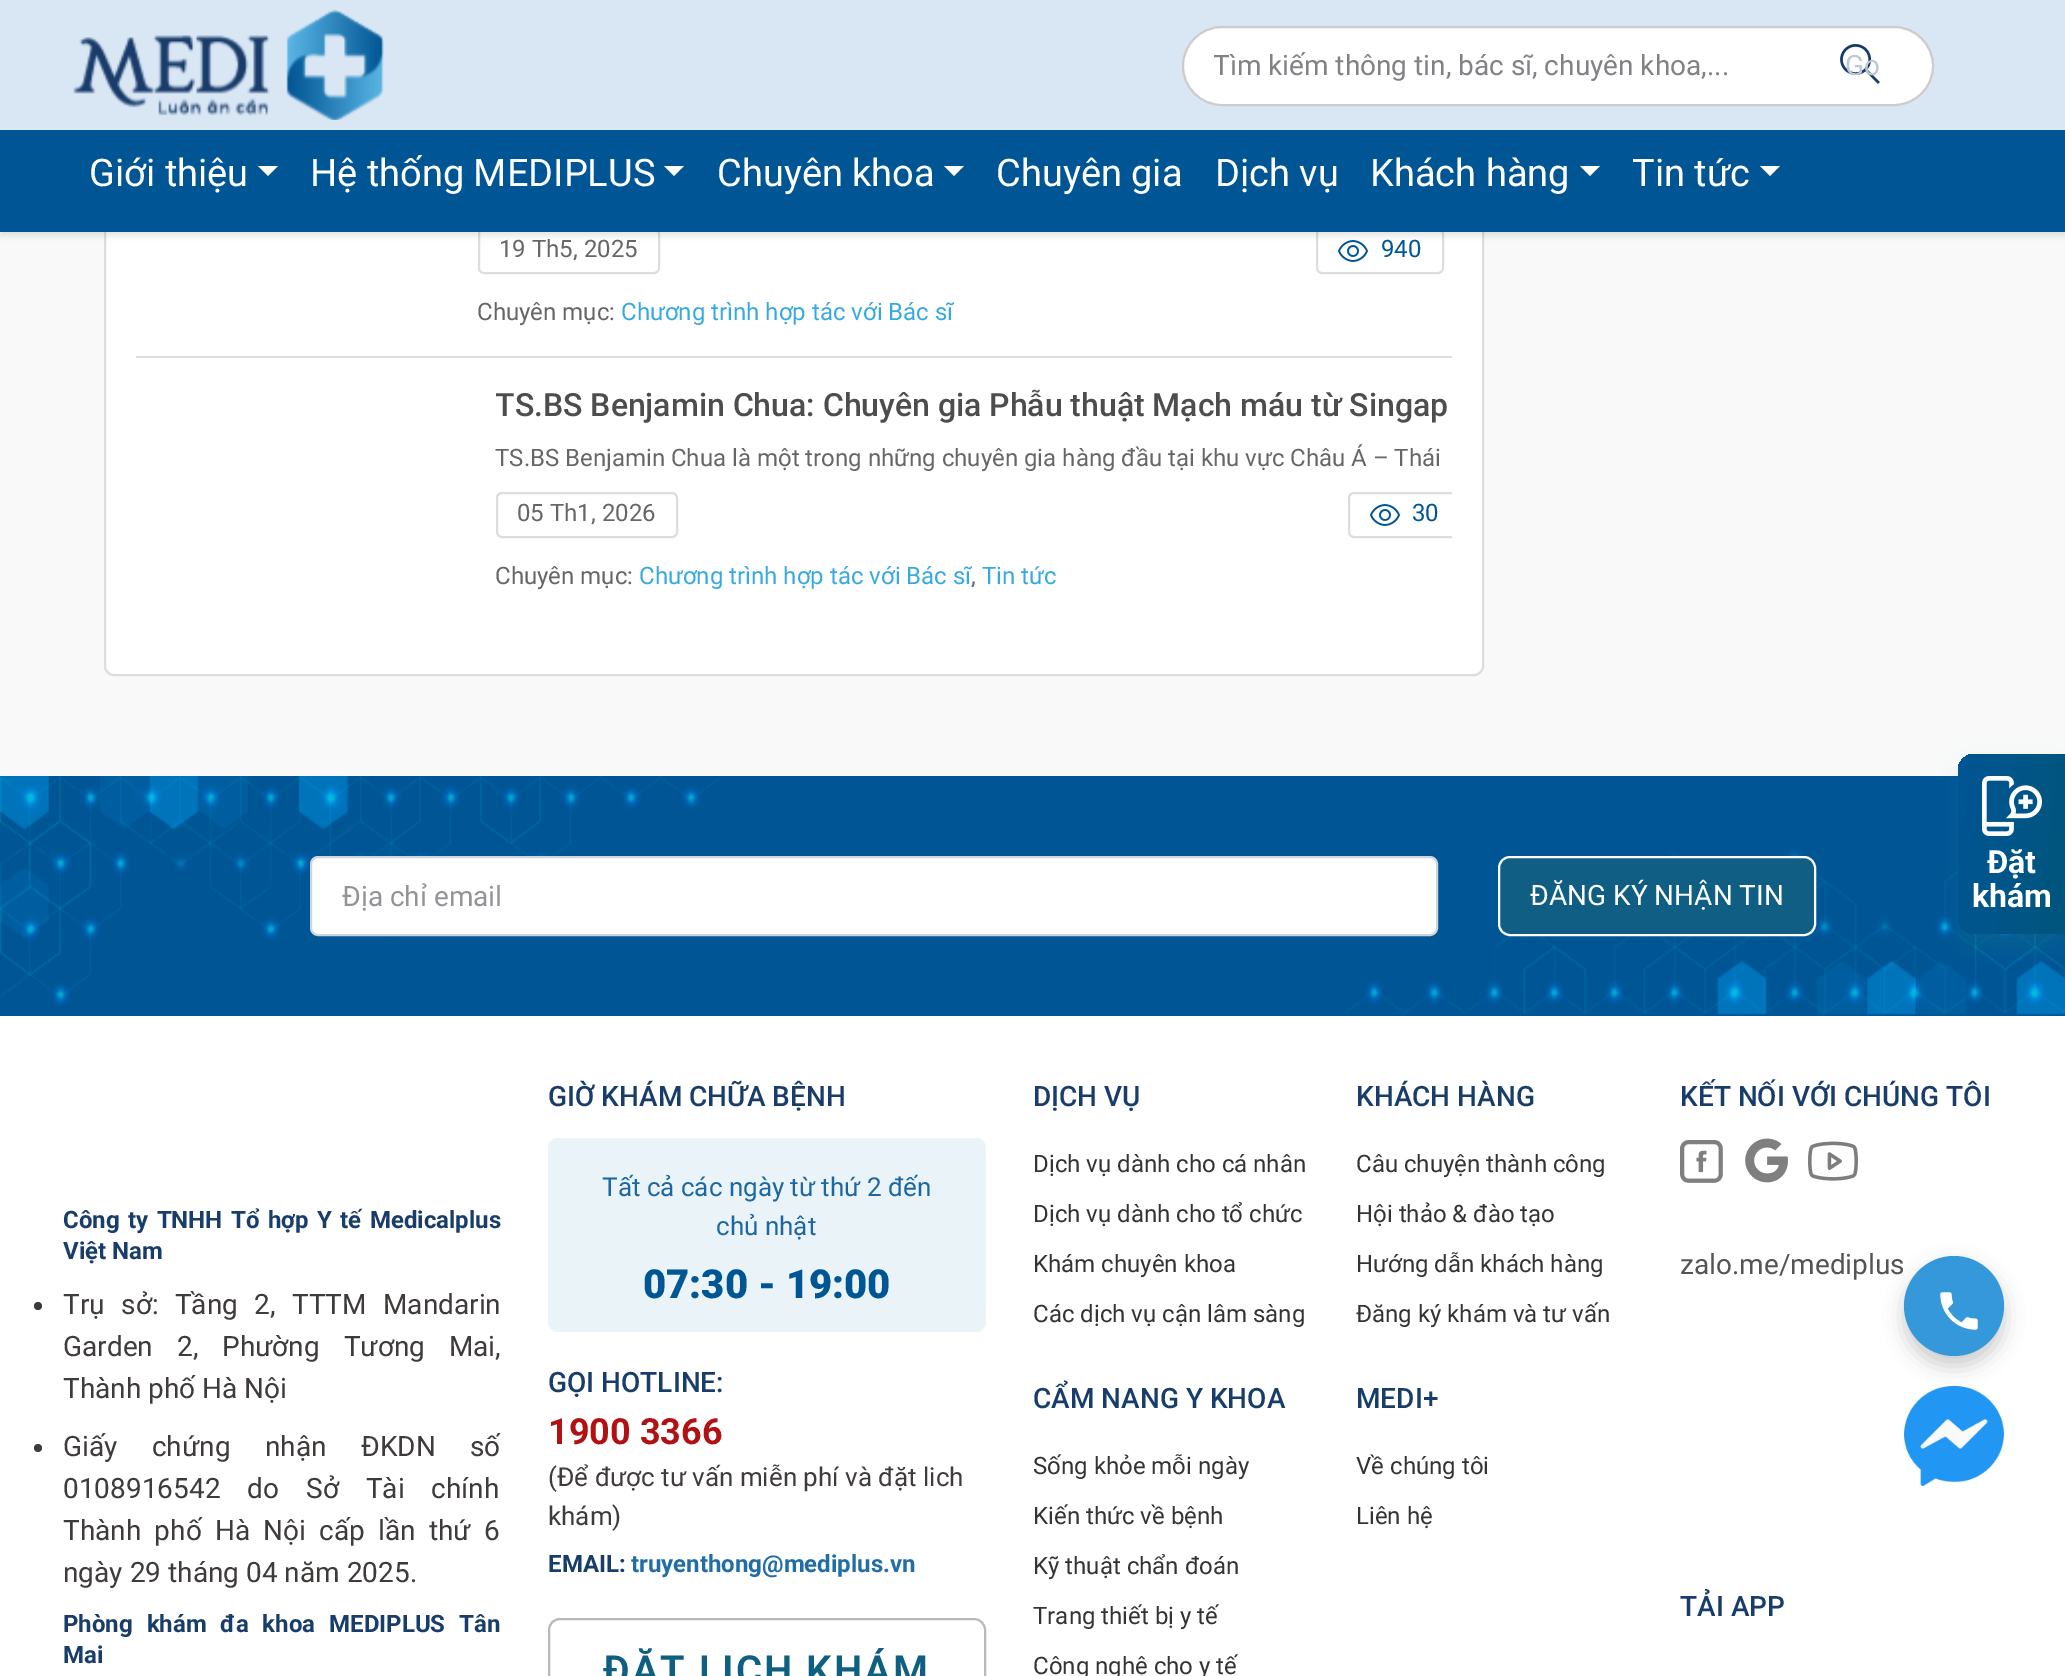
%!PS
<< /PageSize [2065 1676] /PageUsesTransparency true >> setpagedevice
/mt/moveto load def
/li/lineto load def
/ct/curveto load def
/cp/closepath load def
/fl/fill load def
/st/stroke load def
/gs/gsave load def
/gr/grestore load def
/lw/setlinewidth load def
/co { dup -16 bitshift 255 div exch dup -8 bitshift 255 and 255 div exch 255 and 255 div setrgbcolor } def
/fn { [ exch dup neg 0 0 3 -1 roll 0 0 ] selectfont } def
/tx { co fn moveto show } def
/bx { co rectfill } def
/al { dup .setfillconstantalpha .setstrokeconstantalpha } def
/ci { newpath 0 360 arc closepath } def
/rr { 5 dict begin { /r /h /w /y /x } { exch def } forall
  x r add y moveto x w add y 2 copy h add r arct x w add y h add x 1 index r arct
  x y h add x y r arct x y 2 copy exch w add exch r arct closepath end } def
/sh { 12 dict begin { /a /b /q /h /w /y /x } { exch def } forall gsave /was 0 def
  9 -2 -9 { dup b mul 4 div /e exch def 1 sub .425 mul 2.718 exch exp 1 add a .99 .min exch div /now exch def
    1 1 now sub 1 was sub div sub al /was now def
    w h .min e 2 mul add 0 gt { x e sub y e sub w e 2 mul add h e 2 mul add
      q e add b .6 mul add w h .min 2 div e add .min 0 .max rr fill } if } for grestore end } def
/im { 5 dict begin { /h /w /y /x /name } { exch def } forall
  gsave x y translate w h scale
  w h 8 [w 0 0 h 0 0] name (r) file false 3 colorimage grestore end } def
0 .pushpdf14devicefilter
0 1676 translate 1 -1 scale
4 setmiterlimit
0 0 2065 1676 16#FFFFFF bx
0 232 2065 544 16#F9F9F9 bx
16#FFFFFF co
105 -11 1378 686 9 rr gs fl gr
16#DDDDDD co
2 lw
st
479 229 180 44 5 rr st
1317 229 126 44 5 rr st
(media/3.raw) 1338 240 30 22 im
16#000000 co
0 4 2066 232 0 3 .1 sh
0 0 2065 130 16#D9E7F5 bx
(media/1.raw) 73 10 311 110 im
16#FFFFFF co
1183 27 750 78 39 rr gs fl gr
16#CCCCCC co
st
(media/2.raw) 1840 44 40 40 im
0 130 2065 102 16#005594 bx
16#FFFFFF co
258 166 mt 278 166 li 268 176 li cp fl
664 166 mt 684 166 li 674 176 li cp fl
944 166 mt 964 166 li 954 176 li cp fl
1580 166 mt 1600 166 li 1590 176 li cp fl
1760 166 mt 1780 166 li 1770 176 li cp fl
136 356 1316 2 16#DDDDDD bx
497 493 180 44 5 rr st
gs
136 382 1316 238 rectclip
1349 493 112 44 5 rr st
gr
(media/3.raw) 1370 504 30 22 im
0 1015 2065 1 16#005594 bx
(media/4.raw) 0 776 2065 239 im
16#FFFFFF co
311 857 1126 78 7 rr gs fl gr
16#CED4DA co
st
16#105E84 co
1499 857 316 78 11 rr gs fl gr
16#FFFFFF co
st
16#3F3B3B co
38 1306 4 ci fl
38 1448 4 ci fl
16#EAF3F8 co
548 1138 438 194 10 rr fl
16#B8B9B9 co
549 1619 436 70 11 rr st
(media/5.raw) 1680 1140 43 43 im
(media/6.raw) 1745 1138 43 45 im
(media/7.raw) 1808 1141 50 40 im
16#41B67F co
1958 766 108 180 16 12 .12 sh
gs 1974 754 mt 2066 754 li 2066 934 li 1974 934 li 1965 934 1958 927 1958 918 ct 1958 770 li 1958 761 1965 754 1974 754 ct cp clip newpath
<< /ShadingType 2 /ColorSpace /DeviceRGB /Coords [1948 837 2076 851] /Extend [true true] /Function << /FunctionType 3 /Domain [0 1] /Functions [<< /FunctionType 2 /Domain [0 1] /C0 [0 .333 .58] /C1 [0 .333 .58] /N 1 >> << /FunctionType 2 /Domain [0 1] /C0 [0 .333 .58] /C1 [0 .333 .486] /N 1 >>] /Bounds [.03] /Encode [0 1 0 1] >> >> shfill gr
(media/8.raw) 1982 776 60 60 im
16#000000 co
1904 1266 100 100 50 10 .2 sh
16#3498DB co
1954 1306 50 ci fl
(media/9.raw) 1940 1292 38 38 im
(media/10.raw) 1904 1386 100 100 im
gs
1214 50 660 32 rectclip
(Tìm kiếm thông tin, bác sĩ, chuyên khoa,...) 1213 75 /Roboto-Regular 28 16#808285 tx
gr
(Go) 1845 75 /Roboto-Regular 28 16#BDC8D5 tx
(Giới thiệu) 89 186 /Roboto-Regular 38 16#FFFFFF tx
(Hệ thống MEDIPLUS) 310 186 /Roboto-Regular 38 16#FFFFFF tx
(Chuyên khoa) 717 186 /Roboto-Regular 38 16#FFFFFF tx
(Chuyên gia) 996 186 /Roboto-Regular 38 16#FFFFFF tx
(Dịch vụ) 1215 186 /Roboto-Regular 38 16#FFFFFF tx
(Khách hàng) 1370 186 /Roboto-Regular 38 16#FFFFFF tx
(Tin tức) 1632 186 /Roboto-Regular 38 16#FFFFFF tx
(19 Th5, 2025) 499 257 /Roboto-Regular 24 16#666666 tx
(940) 1381 257 /Roboto-Regular 24 16#005594 tx
(Chuyên mục:) 477 320 /Roboto-Regular 24 16#666666 tx
(Chương trình hợp tác với Bác sĩ) 621 320 /Roboto-Regular 24 16#36A9E1 tx
gs
496 382 956 48 rectclip
(TS.BS Benjamin Chua: Chuyên gia Phẫu thuật Mạch máu từ Singap) 495 416 /Roboto-Medium 32 16#4D4D4D tx
gr
(TS.BS Benjamin Chua là một trong những chuyên gia hàng đầu tại khu vực Châu Á – Thái) 495 466 /Roboto-Regular 24 16#666666 tx
(05 Th1, 2026) 517 521 /Roboto-Regular 24 16#666666 tx
(30) 1412 521 /Roboto-Regular 24 16#005594 tx
(Chuyên mục:) 495 584 /Roboto-Regular 24 16#666666 tx
(Chương trình hợp tác với Bác sĩ) 639 584 /Roboto-Regular 24 16#36A9E1 tx
(Tin tức) 982 584 /Roboto-Regular 24 16#36A9E1 tx
(,) 971 584 /Roboto-Regular 24 16#666666 tx
(Địa chỉ email) 342 906 /Roboto-Regular 28 16#929498 tx
(ĐĂNG KÝ NHẬN TIN) 1530 905 /Roboto-Regular 28 16#FFFFFF tx
/Roboto-Bold 24 fn
16#193D6B co
63 1228 mt 2.5 0 32 (Công ty TNHH Tổ hợp Y tế Medicalplus) widthshow
(Việt Nam) 63 1259 /Roboto-Bold 24 16#193D6B tx
/Roboto-Regular 28 fn
16#3F3B3B co
63 1314 mt 9.5 0 32 (Trụ sở: Tầng 2, TTTM Mandarin) widthshow
63 1356 mt 17 0 32 (Garden 2, Phường Tương Mai,) widthshow
(Thành phố Hà Nội) 63 1398 /Roboto-Regular 28 16#3F3B3B tx
63 1456 mt 27.5 0 32 (Giấy chứng nhận ĐKDN số) widthshow
63 1498 mt 20 0 32 (0108916542 do Sở Tài chính) widthshow
63 1540 mt 6.25 0 32 (Thành phố Hà Nội cấp lần thứ 6) widthshow
(ngày 29 tháng 04 năm 2025.) 63 1582 /Roboto-Regular 28 16#3F3B3B tx
/Roboto-Bold 24 fn
16#193D6B co
63 1632 mt 8 0 32 (Phòng khám đa khoa MEDIPLUS Tân) widthshow
(Mai) 63 1663 /Roboto-Bold 24 16#193D6B tx
(GIỜ KHÁM CHỮA BỆNH) 548 1106 /Roboto-Medium 28 16#193D6B tx
(Tất cả các ngày từ thứ 2 đến) 602 1196 /Roboto-Regular 26 16#1C67A2 tx
(chủ nhật) 716 1235 /Roboto-Regular 26 16#1C67A2 tx
(07:30 - 19:00) 643 1298 /Roboto-Black 40 16#005594 tx
(GỌI HOTLINE:) 548 1392 /Roboto-Medium 28 16#193D6B tx
(1900 3366) 548 1444 /Roboto-Bold 36 16#B11112 tx
(\(Để được tư vấn miễn phí và đặt lich) 548 1486 /Roboto-Regular 26 16#3F3B3B tx
(khám\)) 548 1525 /Roboto-Regular 26 16#3F3B3B tx
(EMAIL:) 548 1572 /Roboto-Bold 24 16#193D6B tx
(truyenthong@mediplus.vn) 631 1572 /Roboto-Bold 24 16#206DA7 tx
/Roboto-SemiBold 40 fn
16#0E5F81 co
603 1684 mt 2 0 (ĐẶT LỊCH KHÁM) ashow
(DỊCH VỤ) 1033 1106 /Roboto-Medium 28 16#193D6B tx
(Dịch vụ dành cho cá nhân) 1033 1172 /Roboto-Regular 24 16#333333 tx
(Dịch vụ dành cho tổ chức) 1033 1222 /Roboto-Regular 24 16#333333 tx
(Khám chuyên khoa) 1033 1272 /Roboto-Regular 24 16#333333 tx
(Các dịch vụ cận lâm sàng) 1033 1322 /Roboto-Regular 24 16#333333 tx
(CẨM NANG Y KHOA) 1033 1408 /Roboto-Medium 28 16#193D6B tx
(Sống khỏe mỗi ngày) 1033 1474 /Roboto-Regular 24 16#333333 tx
(Kiến thức về bệnh) 1033 1524 /Roboto-Regular 24 16#333333 tx
(Kỹ thuật chẩn đoán) 1033 1574 /Roboto-Regular 24 16#333333 tx
(Trang thiết bị y tế) 1033 1624 /Roboto-Regular 24 16#333333 tx
(Công nghệ cho y tế) 1033 1674 /Roboto-Regular 24 16#333333 tx
(KHÁCH HÀNG) 1356 1106 /Roboto-Medium 28 16#193D6B tx
(Câu chuyện thành công) 1356 1172 /Roboto-Regular 24 16#333333 tx
(Hội thảo & đào tạo) 1356 1222 /Roboto-Regular 24 16#333333 tx
(Hướng dẫn khách hàng) 1356 1272 /Roboto-Regular 24 16#333333 tx
(Đăng ký khám và tư vấn) 1356 1322 /Roboto-Regular 24 16#333333 tx
(MEDI+) 1356 1408 /Roboto-Medium 28 16#193D6B tx
(Về chúng tôi) 1356 1474 /Roboto-Regular 24 16#333333 tx
(Liên hệ) 1356 1524 /Roboto-Regular 24 16#333333 tx
(KẾT NỐI VỚI CHÚNG TÔI) 1680 1106 /Roboto-Medium 28 16#193D6B tx
(zalo.me/mediplus) 1680 1274 /Roboto-Regular 28 16#545454 tx
(TẢI APP) 1680 1616 /Roboto-Medium 28 16#193D6B tx
(Đặt) 1987 873 /Roboto-Bold 32 16#FFFFFF tx
(khám) 1972 907 /Roboto-Bold 32 16#FFFFFF tx
.poppdf14devicefilter showpage
